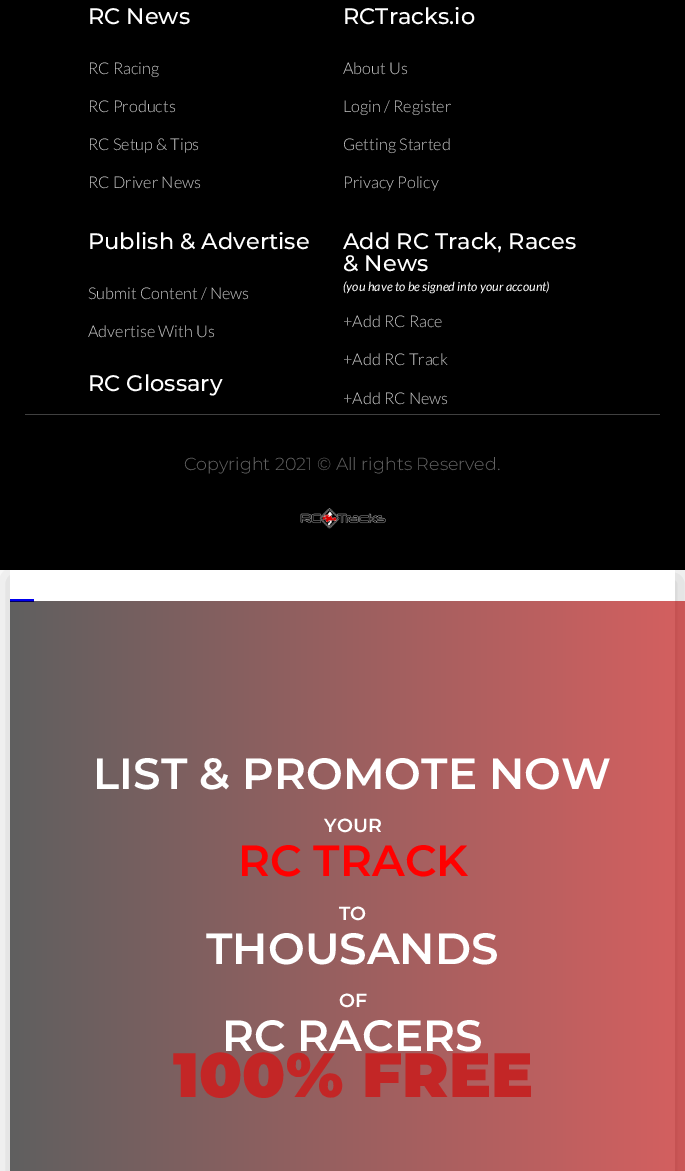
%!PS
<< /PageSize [685 1171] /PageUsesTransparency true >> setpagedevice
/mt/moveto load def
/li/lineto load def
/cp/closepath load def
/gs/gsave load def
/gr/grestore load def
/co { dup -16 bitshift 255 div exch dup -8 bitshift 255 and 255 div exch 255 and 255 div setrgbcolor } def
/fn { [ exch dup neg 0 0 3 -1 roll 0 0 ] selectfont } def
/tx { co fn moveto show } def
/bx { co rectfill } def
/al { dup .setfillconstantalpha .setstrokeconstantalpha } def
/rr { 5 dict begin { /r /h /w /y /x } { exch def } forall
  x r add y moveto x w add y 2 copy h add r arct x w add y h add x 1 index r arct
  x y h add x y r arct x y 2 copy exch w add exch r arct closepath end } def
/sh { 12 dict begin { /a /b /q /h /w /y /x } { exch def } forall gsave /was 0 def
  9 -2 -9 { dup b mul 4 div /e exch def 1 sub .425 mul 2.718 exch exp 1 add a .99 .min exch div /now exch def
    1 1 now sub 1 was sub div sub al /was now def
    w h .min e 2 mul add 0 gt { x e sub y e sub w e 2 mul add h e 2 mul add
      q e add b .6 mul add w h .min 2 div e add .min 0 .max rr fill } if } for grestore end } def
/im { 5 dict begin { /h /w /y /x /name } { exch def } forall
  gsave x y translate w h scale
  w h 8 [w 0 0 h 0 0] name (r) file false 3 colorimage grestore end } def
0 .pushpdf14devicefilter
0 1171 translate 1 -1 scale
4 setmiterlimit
0 0 685 1171 16#FFFFFF bx
16#000000 co
9 576 672 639 0 14.5 .2 sh
0 0 685 570 16#000000 bx
25 414 635 1 16#404040 bx
(media/1.raw) 300 508 86 21 im
10 570 665 601 16#FFFFFF bx
10 599 24 3 16#0000EE bx
0.25 al
10 601 675 570 16#000000 bx
0.5 al
gs 10 601 mt 685 601 li 685 1171 li 10 1171 li cp clip newpath
<< /ShadingType 2 /ColorSpace /DeviceRGB /Coords [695 1069 10 1069] /Extend [true true] /Function << /FunctionType 2 /Domain [0 1] /C0 [.929 0 0] /C1 [0 0 0] /N 1 >> >> shfill gr
1 al
(RC News) 88 24 /Montserrat-Medium 22.5 16#FFFFFF tx
(RC Racing) 88 74 /Lato-Light 16.25 16#C9C9C9 tx
(RC Products) 88 112 /Lato-Light 16.25 16#C9C9C9 tx
(RC Setup & Tips) 88 150 /Lato-Light 16.25 16#C9C9C9 tx
(RC Driver News) 88 188 /Lato-Light 16.25 16#C9C9C9 tx
(RCTracks.io) 343 24 /Montserrat-Medium 22.5 16#FFFFFF tx
(About Us) 343 74 /Lato-Light 16.25 16#C9C9C9 tx
(Login / Register) 343 112 /Lato-Light 16.25 16#C9C9C9 tx
(Getting Started) 343 150 /Lato-Light 16.25 16#C9C9C9 tx
(Privacy Policy) 343 188 /Lato-Light 16.25 16#C9C9C9 tx
(Publish & Advertise) 88 249 /Montserrat-Medium 22.5 16#FFFFFF tx
(Submit Content / News) 88 299 /Lato-Light 16.25 16#C9C9C9 tx
(Advertise With Us) 88 337 /Lato-Light 16.25 16#C9C9C9 tx
(RC Glossary) 88 391 /Montserrat-Medium 22.5 16#FFFFFF tx
(Add RC Track, Races) 343 249 /Montserrat-Medium 22.5 16#FFFFFF tx
(& News) 343 271 /Montserrat-Medium 22.5 16#FFFFFF tx
(\(you have to be signed into your account\)) 343 291 /Lato-Italic 12.5 16#FFFFFF tx
(+Add RC Race) 343 327 /Lato-Light 16.25 16#C9C9C9 tx
(+Add RC Track) 343 365 /Lato-Light 16.25 16#C9C9C9 tx
(+Add RC News) 343 404 /Lato-Light 16.25 16#C9C9C9 tx
(Copyright 2021 © All rights Reserved.) 184 470 /Montserrat-Light 17.5 16#636363 tx
(LIST & PROMOTE NOW) 93 789 /Montserrat-SemiBold 43.75 16#FFFFFF tx
(YOUR) 324 832 /Montserrat-SemiBold 19 16#FFFFFF tx
(RC TRACK) 238 876 /Montserrat-SemiBold 43.75 16#FF0000 tx
(TO) 339 920 /Montserrat-SemiBold 19 16#FFFFFF tx
(THOUSANDS) 206 964 /Montserrat-SemiBold 43.75 16#FFFFFF tx
(OF) 339 1007 /Montserrat-SemiBold 19 16#FFFFFF tx
(RC RACERS) 222 1051 /Montserrat-SemiBold 43.75 16#FFFFFF tx
(100% FREE) 173 1097 /Montserrat-Black 62.5 16#C32626 tx
.poppdf14devicefilter showpage
